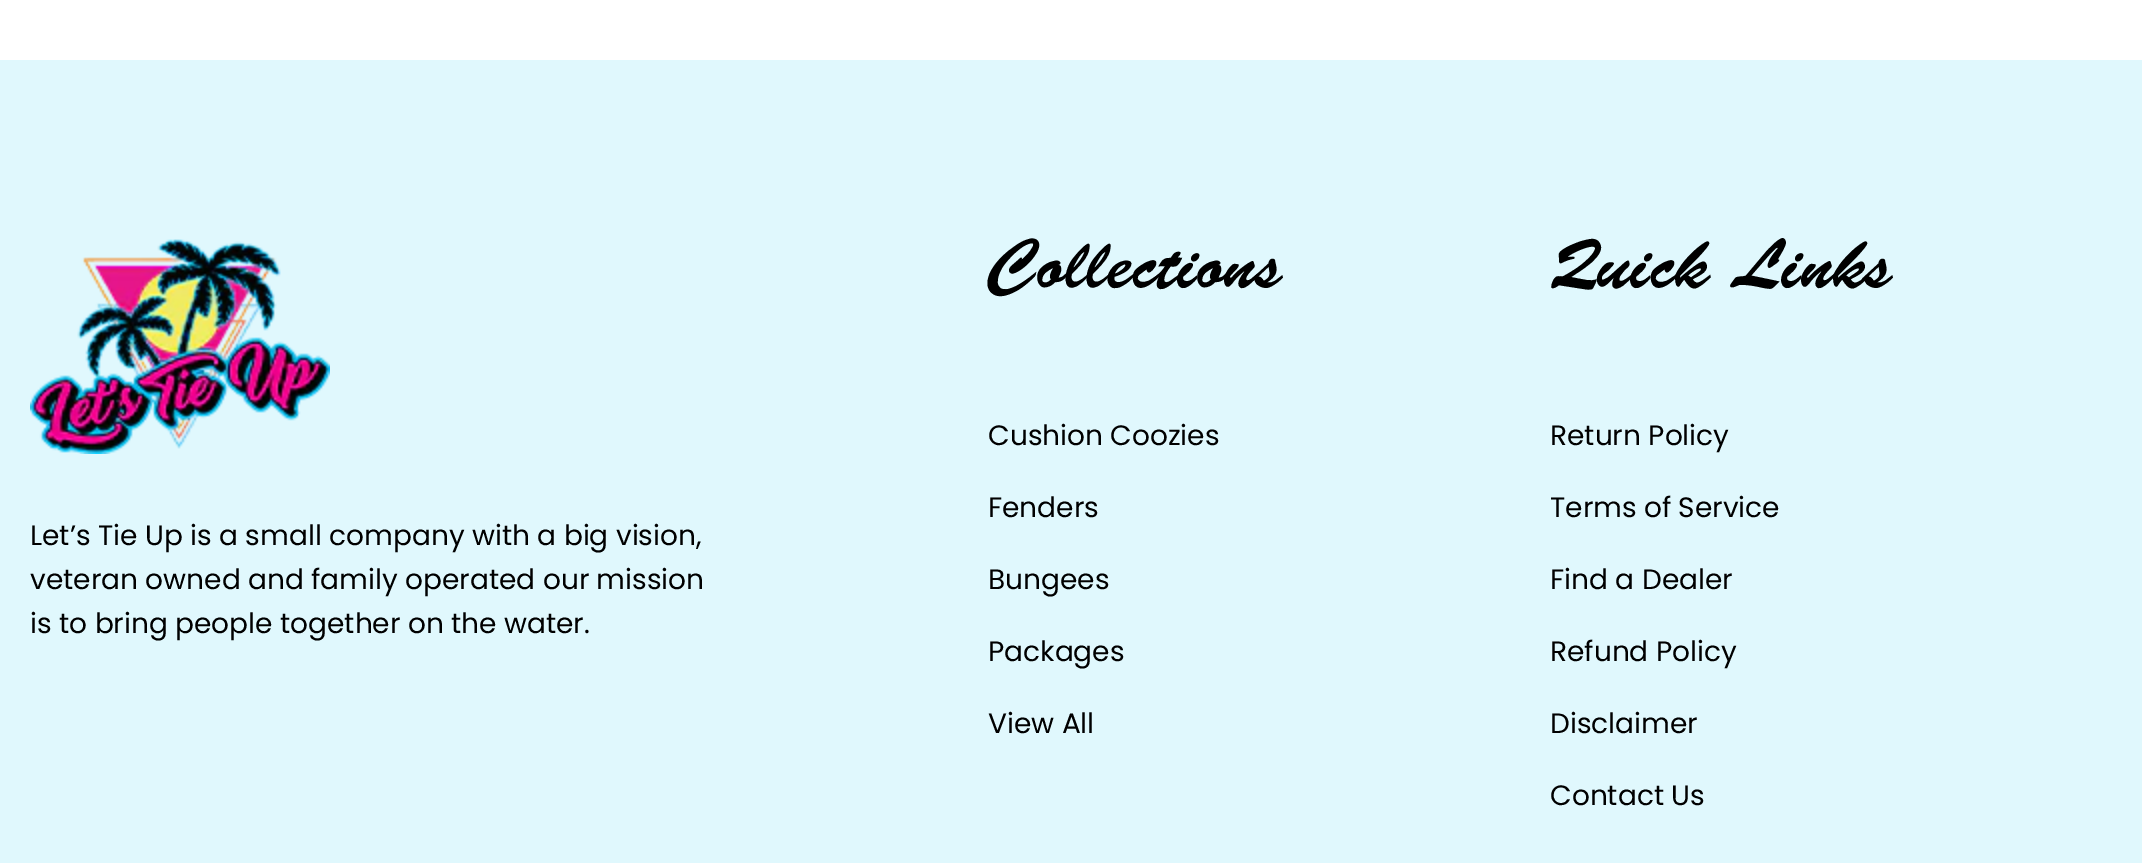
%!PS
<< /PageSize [2142 863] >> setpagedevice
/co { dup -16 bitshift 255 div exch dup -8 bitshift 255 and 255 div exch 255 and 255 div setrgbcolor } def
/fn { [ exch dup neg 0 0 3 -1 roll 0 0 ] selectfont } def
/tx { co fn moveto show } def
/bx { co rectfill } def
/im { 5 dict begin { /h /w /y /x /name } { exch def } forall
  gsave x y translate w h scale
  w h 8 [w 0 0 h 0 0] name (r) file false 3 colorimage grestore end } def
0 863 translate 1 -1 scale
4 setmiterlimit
0 0 2142 863 16#FFFFFF bx
0 60 2142 803 16#E0F8FD bx
(media/1.raw) 30 239 300 215 im
(Let’s Tie Up is a small company with a big vision,) 30 545 /Poppins-Regular 28 16#000000 tx
(veteran owned and family operated our mission) 30 589 /Poppins-Regular 28 16#000000 tx
(is to bring people together on the water.) 30 633 /Poppins-Regular 28 16#000000 tx
(Collections) 988 287 /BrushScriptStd-MediumItalic 70 16#000000 tx
(Cushion Coozies) 988 445 /Poppins-Regular 28 16#000000 tx
(Fenders) 988 517 /Poppins-Regular 28 16#000000 tx
(Bungees) 988 589 /Poppins-Regular 28 16#000000 tx
(Packages) 988 661 /Poppins-Regular 28 16#000000 tx
(View All) 988 733 /Poppins-Regular 28 16#000000 tx
(Quick Links) 1550 287 /BrushScriptStd-MediumItalic 70 16#000000 tx
(Return Policy) 1550 445 /Poppins-Regular 28 16#000000 tx
(Terms of Service) 1550 517 /Poppins-Regular 28 16#000000 tx
(Find a Dealer) 1550 589 /Poppins-Regular 28 16#000000 tx
(Refund Policy) 1550 661 /Poppins-Regular 28 16#000000 tx
(Disclaimer) 1550 733 /Poppins-Regular 28 16#000000 tx
(Contact Us) 1550 805 /Poppins-Regular 28 16#000000 tx
showpage
